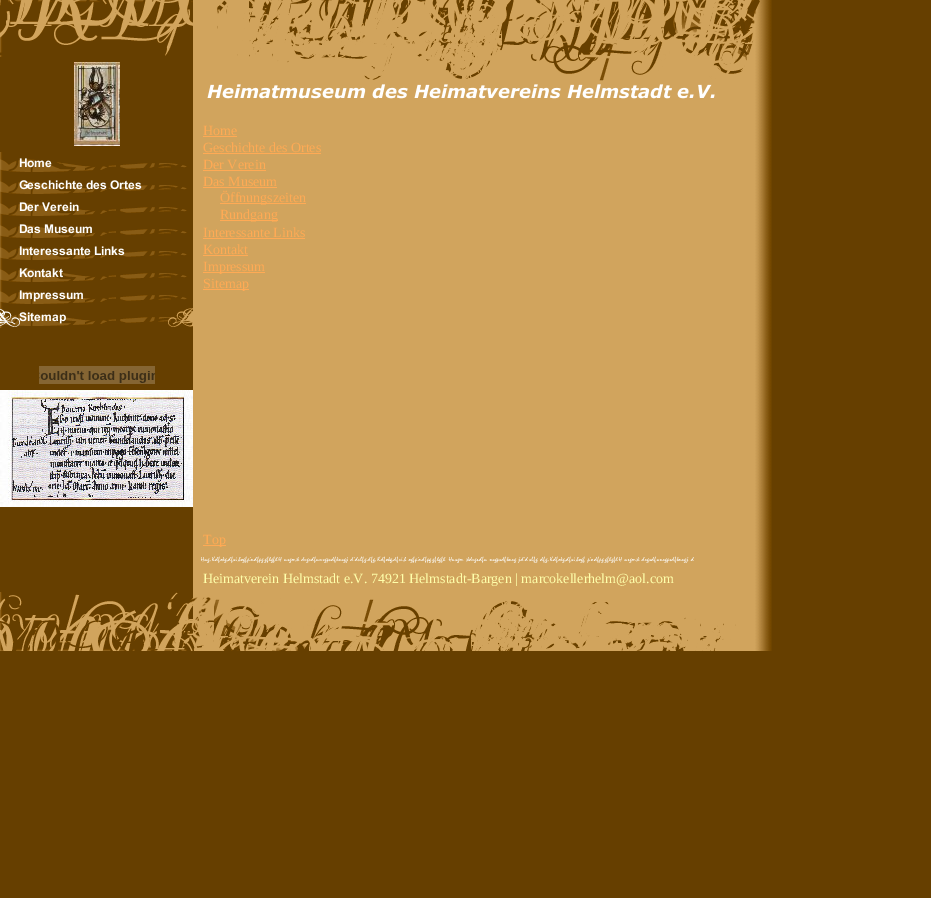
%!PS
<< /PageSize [931 898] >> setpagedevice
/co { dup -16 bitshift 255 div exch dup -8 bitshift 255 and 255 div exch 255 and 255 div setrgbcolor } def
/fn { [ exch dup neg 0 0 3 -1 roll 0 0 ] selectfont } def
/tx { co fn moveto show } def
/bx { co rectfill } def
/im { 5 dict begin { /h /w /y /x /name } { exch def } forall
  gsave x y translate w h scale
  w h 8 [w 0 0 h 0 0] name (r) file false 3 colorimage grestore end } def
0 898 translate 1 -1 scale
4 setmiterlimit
0 0 931 898 16#663F00 bx
(media/1.raw) 0 0 193 57 im
(media/2.raw) 74 62 46 84 im
(media/3.raw) 0 152 187 22 im
(media/4.raw) 0 174 187 22 im
(media/5.raw) 0 196 187 22 im
(media/6.raw) 0 218 187 22 im
(media/7.raw) 0 240 187 22 im
(media/8.raw) 0 262 187 22 im
(media/9.raw) 0 284 187 22 im
(media/10.raw) 0 306 193 22 im
(media/11.raw) 39 366 116 18 im
(media/12.raw) 0 390 193 117 im
193 0 561 651 16#D1A45D bx
(media/13.raw) 217 0 537 81 im
(media/14.raw) 207 84 508 15 im
203 136 34 1 16#FFAA55 bx
203 153 118 1 16#FFAA55 bx
203 170 63 1 16#FFAA55 bx
203 187 74 1 16#FFAA55 bx
220 203 86 1 16#FFAA55 bx
220 220 58 1 16#FFAA55 bx
203 238 102 1 16#FFAA55 bx
203 255 45 1 16#FFAA55 bx
203 272 62 1 16#FFAA55 bx
203 289 46 1 16#FFAA55 bx
(media/15.raw) 754 0 18 651 im
(media/16.raw) 754 0 6 24 im
203 545 23 1 16#FFAA55 bx
(media/17.raw) 201 556 493 7 im
(media/18.raw) 0 592 193 59 im
(media/19.raw) 193 597 543 54 im
(Home) 203 135 /LiberationSerif-Regular 14 16#FFAA55 tx
(Geschichte des Ortes) 203 152 /LiberationSerif-Regular 14 16#FFAA55 tx
(Der Verein) 203 169 /LiberationSerif-Regular 14 16#FFAA55 tx
(Das Museum) 203 186 /LiberationSerif-Regular 14 16#FFAA55 tx
(Öffnungszeiten) 220 202 /LiberationSerif-Regular 14 16#FFAA55 tx
(Rundgang) 220 219 /LiberationSerif-Regular 14 16#FFAA55 tx
(Interessante Links) 203 237 /LiberationSerif-Regular 14 16#FFAA55 tx
(Kontakt) 203 254 /LiberationSerif-Regular 14 16#FFAA55 tx
(Impressum) 203 271 /LiberationSerif-Regular 14 16#FFAA55 tx
(Sitemap) 203 288 /LiberationSerif-Regular 14 16#FFAA55 tx
(Top) 203 544 /LiberationSerif-Regular 14 16#FFAA55 tx
(Heimatverein Helmstadt e.V. 74921 Helmstadt-Bargen | marcokellerhelm@aol.com) 203 583 /LiberationSerif-Regular 14 16#FFFFAA tx
showpage
